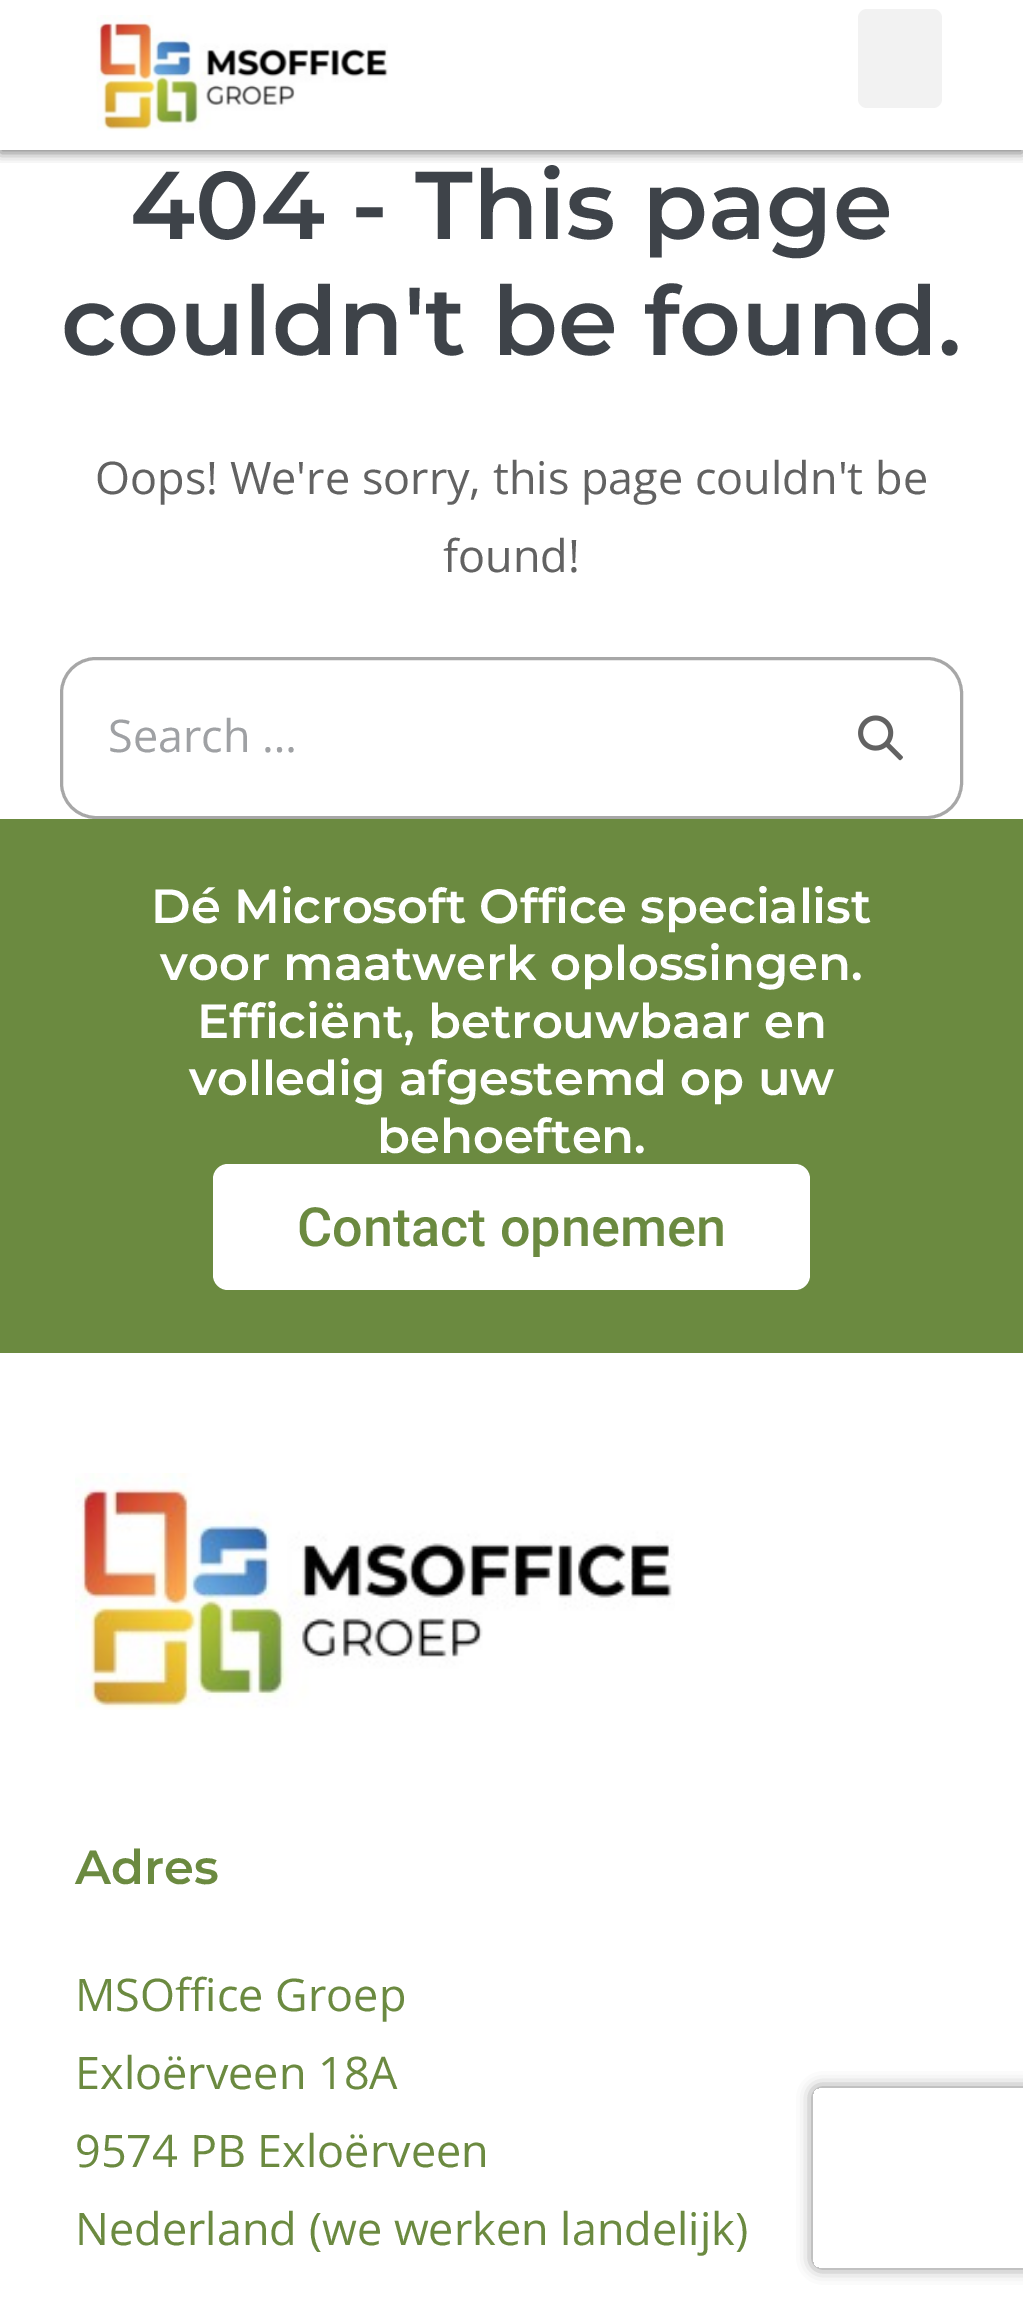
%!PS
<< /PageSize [1023 2310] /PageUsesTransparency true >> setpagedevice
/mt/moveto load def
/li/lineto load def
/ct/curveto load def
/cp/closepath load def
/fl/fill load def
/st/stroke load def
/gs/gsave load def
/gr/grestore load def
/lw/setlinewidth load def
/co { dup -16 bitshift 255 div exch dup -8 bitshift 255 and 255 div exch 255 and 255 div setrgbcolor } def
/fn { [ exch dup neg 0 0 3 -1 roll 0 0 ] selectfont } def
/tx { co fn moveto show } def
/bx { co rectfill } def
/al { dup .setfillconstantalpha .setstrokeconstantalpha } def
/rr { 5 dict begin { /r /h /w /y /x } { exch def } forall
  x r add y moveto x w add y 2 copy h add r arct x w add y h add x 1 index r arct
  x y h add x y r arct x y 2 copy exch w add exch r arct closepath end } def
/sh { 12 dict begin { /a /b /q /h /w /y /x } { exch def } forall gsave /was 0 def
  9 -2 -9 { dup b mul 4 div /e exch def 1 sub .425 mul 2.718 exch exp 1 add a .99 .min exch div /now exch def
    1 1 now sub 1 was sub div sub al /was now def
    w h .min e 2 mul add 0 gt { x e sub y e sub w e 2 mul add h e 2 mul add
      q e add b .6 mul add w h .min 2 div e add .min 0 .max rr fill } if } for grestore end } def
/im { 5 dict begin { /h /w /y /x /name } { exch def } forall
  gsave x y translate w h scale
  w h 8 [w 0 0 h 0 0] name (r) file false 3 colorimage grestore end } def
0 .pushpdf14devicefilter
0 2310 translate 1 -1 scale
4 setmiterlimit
0 0 1023 2310 16#FFFFFF bx
gs
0 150 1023 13 rectclip
16#000000 co
0 3 1023 150 0 6 .5 sh
gr
(media/1.raw) 96 15 292 116 im
16#F2F2F2 co
858 9 84 99 9 rr fl
16#A7A7A7 co
3 lw
61.5 658.5 900 159 34.5 rr st
(media/2.raw) 858 715 45 46 im
0 819 1023 534 16#6B8A40 bx
16#FFFFFF co
213 1164 597 126 15 rr fl
(media/3.raw) 75 1473 600 237 im
gs
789 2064 mt 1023 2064 li 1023 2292 li 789 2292 li cp 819 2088 mt 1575 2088 li 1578.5 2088 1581 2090.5 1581 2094 ct 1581 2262 li 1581 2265.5 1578.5 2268 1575 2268 ct 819 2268 li 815.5 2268 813 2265.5 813 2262 ct 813 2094 li 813 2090.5 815.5 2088 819 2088 ct cp eoclip newpath
16#808080 co
813 2088 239 180 6 7.5 1 sh
gr
(404 - This page) 130 239 /Montserrat-SemiBold 96 16#3E4349 tx
(couldn't be found.) 61 355 /Montserrat-SemiBold 96 16#3E4349 tx
(Oops! We're sorry, this page couldn't be) 95 494 /OpenSans-Regular 45 16#626262 tx
(found!) 443 572 /OpenSans-Regular 45 16#626262 tx
(Search …) 108 752 /OpenSans-Regular 45 16#9FA1A4 tx
(Dé Microsoft Office specialist) 151 923 /Montserrat-SemiBold 48 16#FFFFFF tx
(voor maatwerk oplossingen.) 160 980 /Montserrat-SemiBold 48 16#FFFFFF tx
(Efficiënt, betrouwbaar en) 197 1038 /Montserrat-SemiBold 48 16#FFFFFF tx
(volledig afgestemd op uw) 189 1095 /Montserrat-SemiBold 48 16#FFFFFF tx
(behoeften.) 377 1153 /Montserrat-SemiBold 48 16#FFFFFF tx
(Contact opnemen) 297 1246 /Roboto-Medium 54 16#6B8A40 tx
(Adres) 75 1884 /Montserrat-SemiBold 48 16#6B8A40 tx
(MSOffice Groep) 75 2011 /OpenSans-Regular 45 16#6B8A40 tx
(Exloërveen 18A) 75 2089 /OpenSans-Regular 45 16#6B8A40 tx
(9574 PB Exloërveen) 75 2167 /OpenSans-Regular 45 16#6B8A40 tx
(Nederland \(we werken landelijk\)) 75 2245 /OpenSans-Regular 45 16#6B8A40 tx
.poppdf14devicefilter showpage
